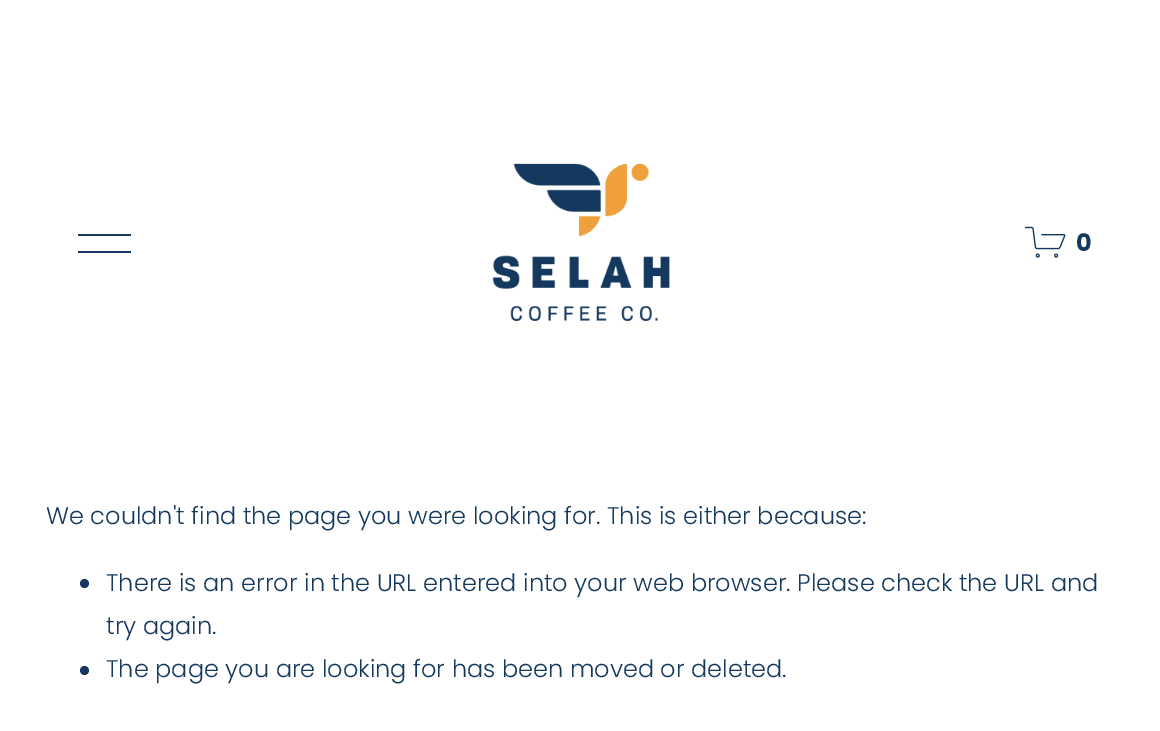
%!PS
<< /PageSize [1160 731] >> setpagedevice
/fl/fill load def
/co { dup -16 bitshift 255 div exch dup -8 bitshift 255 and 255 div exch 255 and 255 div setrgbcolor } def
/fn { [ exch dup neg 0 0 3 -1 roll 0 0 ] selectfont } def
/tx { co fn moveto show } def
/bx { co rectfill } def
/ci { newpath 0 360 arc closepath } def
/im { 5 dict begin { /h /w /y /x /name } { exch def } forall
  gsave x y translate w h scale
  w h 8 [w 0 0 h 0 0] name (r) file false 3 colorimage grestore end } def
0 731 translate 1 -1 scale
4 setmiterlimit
0 0 1160 731 16#FFFFFF bx
78 234 53 2 16#15395E bx
78 251 53 2 16#15395E bx
(media/1.raw) 492 163 178 158 im
(media/2.raw) 1025 226 41 32 im
84.5 583.5 4.5 ci fl
84.5 670.5 4.5 ci fl
(0) 1076 251 /Poppins-Bold 24 16#15395E tx
(We couldn't find the page you were looking for. This is either because:) 46 524 /Poppins-Light 24 16#15395E tx
(There is an error in the URL entered into your web browser. Please check the URL and) 106 591 /Poppins-Light 24 16#15395E tx
(try again.) 106 634 /Poppins-Light 24 16#15395E tx
(The page you are looking for has been moved or deleted.) 106 677 /Poppins-Light 24 16#15395E tx
showpage
